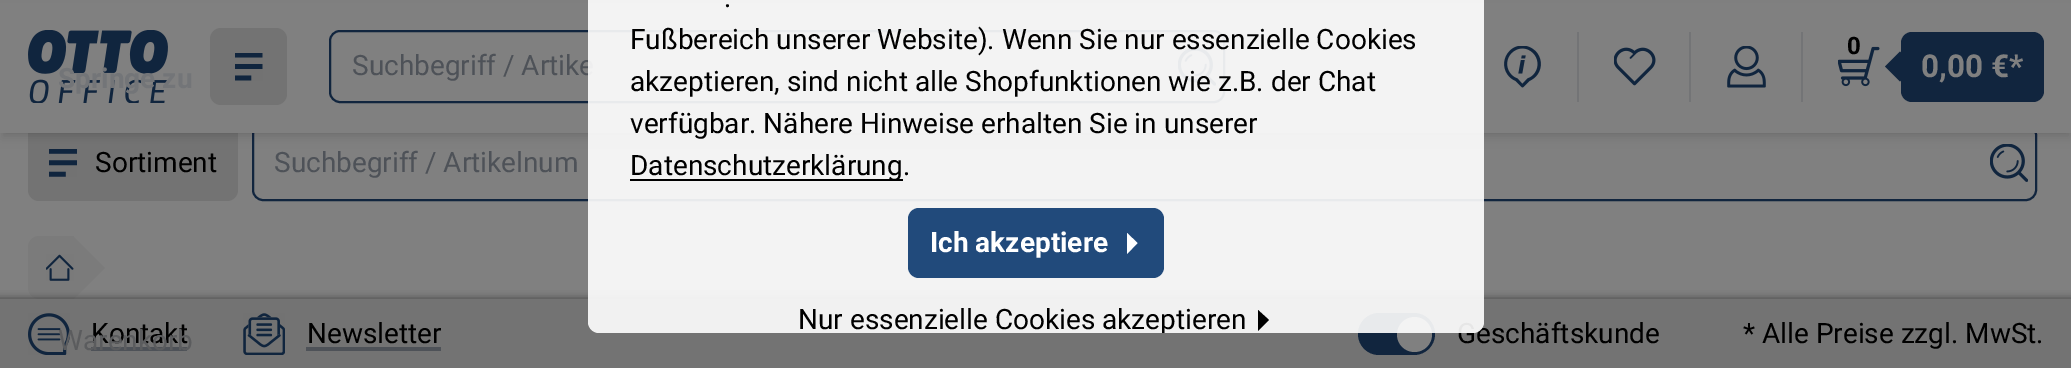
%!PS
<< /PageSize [2071 368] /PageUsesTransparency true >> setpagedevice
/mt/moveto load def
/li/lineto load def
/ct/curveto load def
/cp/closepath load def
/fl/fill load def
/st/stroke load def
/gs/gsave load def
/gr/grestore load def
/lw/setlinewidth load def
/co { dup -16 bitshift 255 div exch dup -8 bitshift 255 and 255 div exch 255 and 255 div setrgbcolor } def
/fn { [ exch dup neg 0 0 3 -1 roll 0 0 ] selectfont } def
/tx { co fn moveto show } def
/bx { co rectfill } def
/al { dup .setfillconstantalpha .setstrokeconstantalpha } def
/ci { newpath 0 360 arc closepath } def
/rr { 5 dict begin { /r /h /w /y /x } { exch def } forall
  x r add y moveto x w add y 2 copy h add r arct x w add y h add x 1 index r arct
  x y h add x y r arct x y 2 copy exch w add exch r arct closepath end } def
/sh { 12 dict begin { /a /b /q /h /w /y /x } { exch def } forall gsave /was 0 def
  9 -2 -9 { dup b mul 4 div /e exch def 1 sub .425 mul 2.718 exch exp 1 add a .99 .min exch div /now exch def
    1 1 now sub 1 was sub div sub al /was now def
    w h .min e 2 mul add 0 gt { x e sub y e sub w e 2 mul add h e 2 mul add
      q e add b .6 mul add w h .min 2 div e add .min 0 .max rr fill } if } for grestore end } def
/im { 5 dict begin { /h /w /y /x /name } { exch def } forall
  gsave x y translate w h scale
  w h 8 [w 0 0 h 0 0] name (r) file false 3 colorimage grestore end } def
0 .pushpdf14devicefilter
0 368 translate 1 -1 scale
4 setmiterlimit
0 0 2071 368 16#808080 bx
16#737373 co
28 124 210 77 11 rr fl
16#11253E co
2 lw
253 125 1783 75 10 rr st
(media/9.raw) 1990 144 38 38 im
16#000000 co
4 7 2065 126 0 3.5 .1 sh
(media/8.raw) 49 149 28 28 im
2 9 2068 129 0 5 .1 sh
0 3 2071 130 16#808080 bx
(media/1.raw) 28 30 140 73 im
16#737373 co
210 28 77 77 11 rr fl
(media/2.raw) 235 53 28 28 im
16#11253E co
330 31 894 71 10 rr st
(media/3.raw) 1178 47 38 39 im
(media/4.raw) 1504 46 37 42 im
1577 32 2 70 16#737476 bx
(media/5.raw) 1614 47 42 39 im
1689 32 2 70 16#737476 bx
(media/6.raw) 1727 46 39 42 im
1801 32 2 70 16#737476 bx
(media/7.raw) 1838 46 42 41 im
16#11253E co
1901 32 143 70 11 rr fl
1900 51.5 mt 1914.5 66.5 li 1900 81.5 li 1885 66.5 li cp fl
16#7B7B7B co
39 236 mt 74 236 li 74 299 li 39 299 li 33 299 28 294 28 288 ct 28 247 li 28 241 33 236 39 236 ct cp fl
74 237 mt 105 268 li 74 299 li 42 268 li cp fl
(media/10.raw) 46 254 28 27 im
16#000000 co
-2 298 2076 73 0 3.5 .4 sh
0 299 2071 69 16#737373 bx
(media/11.raw) 28 313 42 42 im
91 347 96 4 16#4E5258 bx
(media/12.raw) 243 313 42 42 im
306 347 135 4 16#4E5258 bx
16#11253E co
1358 313 77 42 21 rr fl
16#808080 co
1414.5 334.5 17.5 ci fl
(Suchbegriff / Artike) 352 75 /Roboto-Regular 28 16#4E5258 tx
(0) 1847 54 /Roboto-Bold 24 16#000000 tx
(0,00 €*) 1921 77 /Roboto-Bold 31.5 16#808080 tx
(Sortiment) 95 172 /Roboto-Regular 28 16#000000 tx
(Suchbegriff / Artikelnum) 274 172 /Roboto-Regular 28 16#4E5258 tx
(Springe zu) 58 88 /Roboto-Bold 28 16#737578 tx
(Kontakt) 91 343 /Roboto-Regular 28 16#000000 tx
(Warenkorb) 58 350 /Roboto-Regular 28 16#5B5C5E tx
(Newsletter) 307 343 /Roboto-Regular 28 16#000000 tx
(Geschäftskunde) 1457 343 /Roboto-Regular 28 16#000000 tx
0.9 al
16#FFFFFF co
588 0 mt 1484 0 li 1484 322 li 1484 328 1479 333 1473 333 ct 599 333 li 593 333 588 328 588 322 ct cp fl
1 al
16#000000 co
1258 331 mt 1258 310 li 1269 320 li cp fl
16#214A7B co
908 208 256 70 11 rr fl
16#FFFFFF co
1127 254 mt 1127 233 li 1137.5 243 li cp fl
gs
588 0 mt 1484 0 li 1484 322 li 1484 328 1479 333 1473 333 ct 599 333 li 593 333 588 328 588 322 ct cp clip newpath
(Nur essenzielle Cookies akzeptieren) 798 329 /Roboto-Regular 28 16#000000 tx
gr
(Ich akzeptiere) 930 252 /Roboto-Bold 28 16#FFFFFF tx
630 179 273 2 16#000000 bx
(Datenschutzerklärung.) 630 175 /Roboto-Regular 28 16#000000 tx
(verfügbar. Nähere Hinweise erhalten Sie in unserer) 630 133 /Roboto-Regular 28 16#000000 tx
(akzeptieren, sind nicht alle Shopfunktionen wie z.B. der Chat) 630 91 /Roboto-Regular 28 16#000000 tx
(Fußbereich unserer Website\). Wenn Sie nur essenzielle Cookies) 630 49 /Roboto-Regular 28 16#000000 tx
(.) 724 7 /Roboto-Regular 28 16#000000 tx
(* Alle Preise zzgl. MwSt.) 1743 343 /Roboto-Regular 28 16#000000 tx
.poppdf14devicefilter showpage
